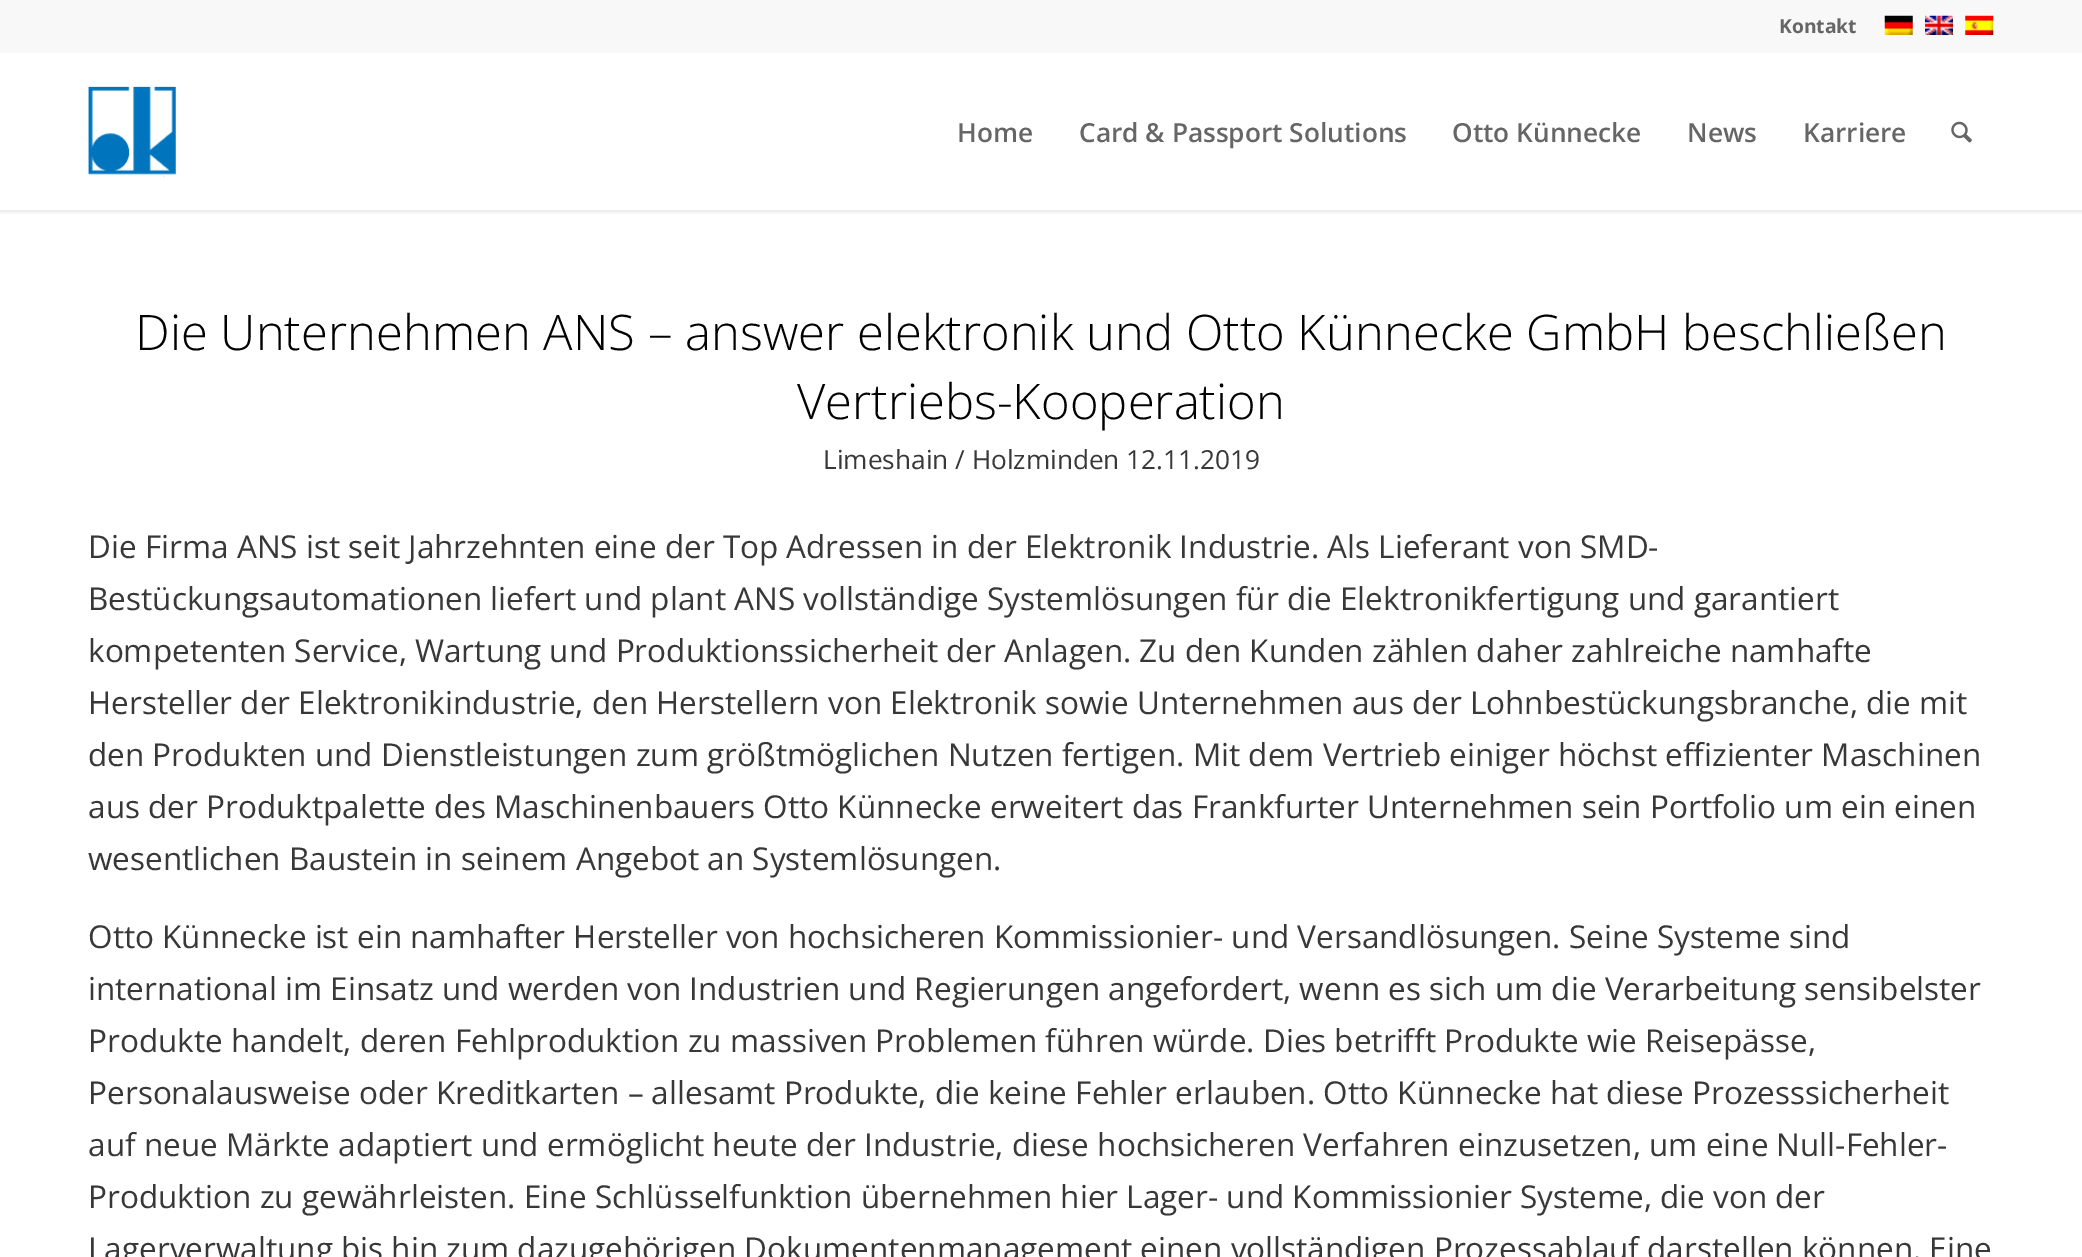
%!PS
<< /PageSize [2082 1257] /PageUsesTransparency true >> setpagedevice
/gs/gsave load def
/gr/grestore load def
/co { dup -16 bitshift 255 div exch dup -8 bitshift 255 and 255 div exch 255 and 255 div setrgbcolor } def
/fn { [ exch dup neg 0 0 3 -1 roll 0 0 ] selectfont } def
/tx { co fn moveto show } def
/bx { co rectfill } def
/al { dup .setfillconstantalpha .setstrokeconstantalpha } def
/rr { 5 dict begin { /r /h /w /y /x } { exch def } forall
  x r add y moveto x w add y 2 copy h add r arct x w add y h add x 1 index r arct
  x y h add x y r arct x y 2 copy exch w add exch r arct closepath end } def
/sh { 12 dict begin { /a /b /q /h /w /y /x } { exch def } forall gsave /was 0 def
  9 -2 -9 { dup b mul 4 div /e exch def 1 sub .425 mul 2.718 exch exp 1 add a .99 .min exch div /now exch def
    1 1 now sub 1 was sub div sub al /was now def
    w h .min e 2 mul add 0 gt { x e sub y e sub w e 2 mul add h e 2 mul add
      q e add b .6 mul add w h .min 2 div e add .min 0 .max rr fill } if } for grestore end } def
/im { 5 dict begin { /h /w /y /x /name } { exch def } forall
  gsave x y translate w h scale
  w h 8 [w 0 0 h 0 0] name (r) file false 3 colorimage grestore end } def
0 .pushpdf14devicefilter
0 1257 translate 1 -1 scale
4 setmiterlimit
0 0 2082 1257 16#FFFFFF bx
gs
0 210 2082 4 rectclip
16#000000 co
-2 -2 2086 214 0 2 .1 sh
gr
0 0 2082 53 16#F8F8F8 bx
(media/1.raw) 1884 15 29 20 im
(media/2.raw) 1925 15 28 20 im
(media/3.raw) 1965 15 29 20 im
(media/4.raw) 88 86 88 91 im
(media/5.raw) 1951 121 21 22 im
(Kontakt) 1779 33 /OpenSans-Bold 19.25 16#666666 tx
(Home) 957 142 /OpenSans-SemiBold 26.25 16#666666 tx
(Card & Passport Solutions) 1079 142 /OpenSans-SemiBold 26.25 16#666666 tx
(Otto Künnecke) 1452 142 /OpenSans-SemiBold 26.25 16#666666 tx
(News) 1687 142 /OpenSans-SemiBold 26.25 16#666666 tx
(Karriere) 1803 142 /OpenSans-SemiBold 26.25 16#666666 tx
(Die Unternehmen ANS – answer elektronik und Otto Künnecke GmbH beschließen) 135 350 /OpenSans-Light 49 16#000000 tx
(Vertriebs-Kooperation) 797 419 /OpenSans-Light 49 16#000000 tx
(Limeshain / Holzminden 12.11.2019) 823 469 /OpenSans-Regular 26.25 16#383838 tx
(Die Firma ANS ist seit Jahrzehnten eine der Top Adressen in der Elektronik Industrie. Als Lieferant von SMD-) 88 558 /OpenSans-Regular 31.5 16#383838 tx
(Bestückungsautomationen liefert und plant ANS vollständige Systemlösungen für die Elektronikfertigung und garantiert) 88 610 /OpenSans-Regular 31.5 16#383838 tx
(kompetenten Service, Wartung und Produktionssicherheit der Anlagen. Zu den Kunden zählen daher zahlreiche namhafte) 88 662 /OpenSans-Regular 31.5 16#383838 tx
(Hersteller der Elektronikindustrie, den Herstellern von Elektronik sowie Unternehmen aus der Lohnbestückungsbranche, die mit) 88 714 /OpenSans-Regular 31.5 16#383838 tx
(den Produkten und Dienstleistungen zum größtmöglichen Nutzen fertigen. Mit dem Vertrieb einiger höchst effizienter Maschinen) 88 766 /OpenSans-Regular 31.5 16#383838 tx
(aus der Produktpalette des Maschinenbauers Otto Künnecke erweitert das Frankfurter Unternehmen sein Portfolio um ein einen) 88 818 /OpenSans-Regular 31.5 16#383838 tx
(wesentlichen Baustein in seinem Angebot an Systemlösungen.) 88 870 /OpenSans-Regular 31.5 16#383838 tx
(Otto Künnecke ist ein namhafter Hersteller von hochsicheren Kommissionier- und Versandlösungen. Seine Systeme sind) 88 948 /OpenSans-Regular 31.5 16#383838 tx
(international im Einsatz und werden von Industrien und Regierungen angefordert, wenn es sich um die Verarbeitung sensibelster) 88 1000 /OpenSans-Regular 31.5 16#383838 tx
(Produkte handelt, deren Fehlproduktion zu massiven Problemen führen würde. Dies betrifft Produkte wie Reisepässe,) 88 1052 /OpenSans-Regular 31.5 16#383838 tx
(Personalausweise oder Kreditkarten – allesamt Produkte, die keine Fehler erlauben. Otto Künnecke hat diese Prozesssicherheit) 88 1104 /OpenSans-Regular 31.5 16#383838 tx
(auf neue Märkte adaptiert und ermöglicht heute der Industrie, diese hochsicheren Verfahren einzusetzen, um eine Null-Fehler-) 88 1156 /OpenSans-Regular 31.5 16#383838 tx
(Produktion zu gewährleisten. Eine Schlüsselfunktion übernehmen hier Lager- und Kommissionier Systeme, die von der) 88 1208 /OpenSans-Regular 31.5 16#383838 tx
(Lagerverwaltung bis hin zum dazugehörigen Dokumentenmanagement einen vollständigen Prozessablauf darstellen können. Eine) 88 1260 /OpenSans-Regular 31.5 16#383838 tx
.poppdf14devicefilter showpage
